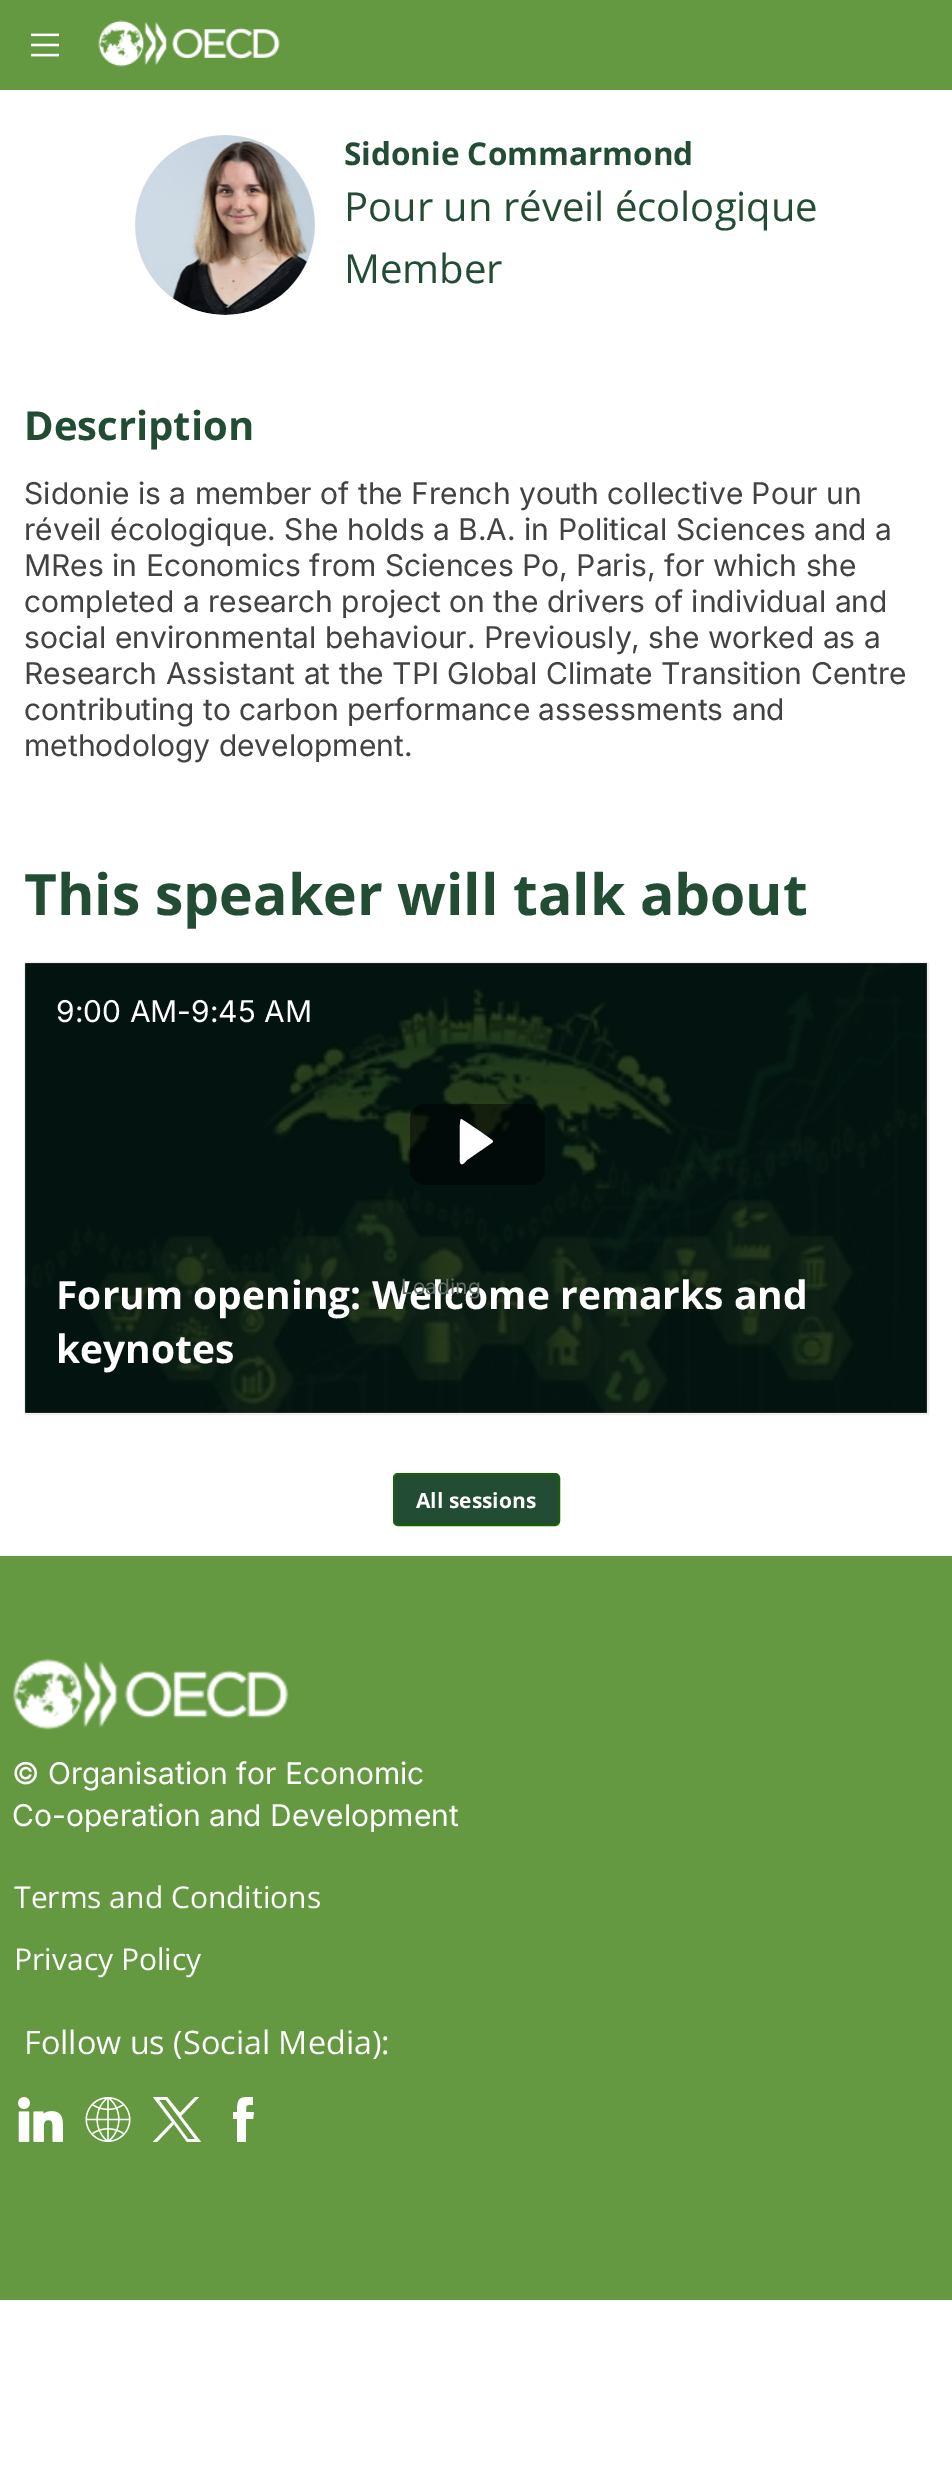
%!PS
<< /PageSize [952 2480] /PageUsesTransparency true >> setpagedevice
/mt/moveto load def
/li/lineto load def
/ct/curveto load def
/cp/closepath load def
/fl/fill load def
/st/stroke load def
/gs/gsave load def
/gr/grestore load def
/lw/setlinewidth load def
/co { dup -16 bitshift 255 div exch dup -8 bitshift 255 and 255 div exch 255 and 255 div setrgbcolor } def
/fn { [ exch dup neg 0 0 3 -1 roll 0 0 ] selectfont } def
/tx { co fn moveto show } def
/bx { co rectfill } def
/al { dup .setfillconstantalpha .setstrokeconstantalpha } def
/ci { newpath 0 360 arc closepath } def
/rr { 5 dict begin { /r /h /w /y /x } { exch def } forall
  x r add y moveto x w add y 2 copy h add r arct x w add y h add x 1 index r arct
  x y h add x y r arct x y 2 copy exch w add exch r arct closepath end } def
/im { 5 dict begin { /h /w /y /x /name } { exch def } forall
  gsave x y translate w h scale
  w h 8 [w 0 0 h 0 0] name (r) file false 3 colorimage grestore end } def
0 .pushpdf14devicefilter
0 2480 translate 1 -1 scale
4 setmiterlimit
0 0 952 2480 16#FFFFFF bx
0 0 952 90 16#659941 bx
(media/1.raw) 31 33 28 24 im
(media/2.raw) 98 20 182 47 im
16#E9E9E9 co
225 225 90 ci fl
(media/3.raw) 135 135 180 180 im
16#EEEEEE co
2 lw
25 963 903 451 rectstroke
(media/4.raw) 25 963 902 450 im
0.6 al
26 963 901 450 16#000000 bx
0.5 al
410 1104 135 81 15 rr fl
1 al
16#FFFFFF co
493 1141 mt 490 1138 462 1119 461 1119 ct 459 1120 460 1151 460 1156 ct 460 1158 459 1162 461 1164 ct 463 1165 465 1162 467 1160 ct 493 1142 li cp fl
16#224C34 co
394 1474 165 51 4 rr gs fl gr
16#1A5E07 co
st
0 1556 952 744 16#659941 bx
(media/5.raw) 13 1658 276 72 im
(media/6.raw) 18 2097 45 45 im
(media/7.raw) 85 2097 46 45 im
16#FFFFFF co
153 2097 mt 172 2122 li 153 2142 li 157 2142 li 174 2124 li 187 2142 li 201 2142 li 181 2116 li 199 2097 li 195 2097 li 180 2113 li 167 2097 li cp 159 2100 mt 166 2100 li 195 2139 li 188 2139 li cp fl
246 2112 mt 246 2104 246 2105 253 2105 ct 253 2097 li 240 2097 237 2097 237 2112 ct 233 2112 li 233 2119 li 237 2119 li 237 2142 li 246 2142 li 246 2119 li 253 2119 li 254 2112 li cp fl
(Sidonie Commarmond) 344 165 /OpenSans-Bold 31.5 16#224C34 tx
(Pour un réveil écologique) 344 221 /OpenSans-Regular 40 16#224C34 tx
(Member) 344 283 /OpenSans-Regular 40 16#224C34 tx
(Description) 24 440 /OpenSans-Bold 40 16#224C34 tx
(Sidonie is a member of the French youth collective Pour un) 24 504 /Inter-Regular 30 16#424242 tx
(réveil écologique. She holds a B.A. in Political Sciences and a) 24 540 /Inter-Regular 30 16#424242 tx
(MRes in Economics from Sciences Po, Paris, for which she) 24 576 /Inter-Regular 30 16#424242 tx
(completed a research project on the drivers of individual and) 24 612 /Inter-Regular 30 16#424242 tx
(social environmental behaviour. Previously, she worked as a) 24 648 /Inter-Regular 30 16#424242 tx
(Research Assistant at the TPI Global Climate Transition Centre) 24 684 /Inter-Regular 30 16#424242 tx
(contributing to carbon performance assessments and) 24 720 /Inter-Regular 30 16#424242 tx
(methodology development.) 24 756 /Inter-Regular 30 16#424242 tx
(This speaker will talk about) 24 915 /OpenSans-Bold 57 16#224C34 tx
(9:00 AM-9:45 AM) 56 1022 /Inter-Regular 30 16#FFFFFF tx
(Forum opening: Welcome remarks and) 56 1309 /OpenSans-Bold 39 16#FFFFFF tx
(keynotes) 56 1363 /OpenSans-Bold 39 16#FFFFFF tx
(All sessions) 416 1508 /OpenSans-Bold 21 16#FFFFFF tx
(© Organisation for Economic) 12 1784 /Inter-Regular 30 16#FFFFFF tx
(Co-operation and Development) 12 1826 /Inter-Regular 30 16#FFFFFF tx
(Terms and Conditions) 14 1908 /OpenSans-Regular 30 16#FFFFFF tx
(Privacy Policy) 14 1970 /OpenSans-Regular 30 16#FFFFFF tx
(Follow us \(Social Media\):) 24 2054 /OpenSans-Regular 32.4 16#FFFFFF tx
(Loading) 401 1294 /Inter-Regular 21 16#616D65 tx
.poppdf14devicefilter showpage
